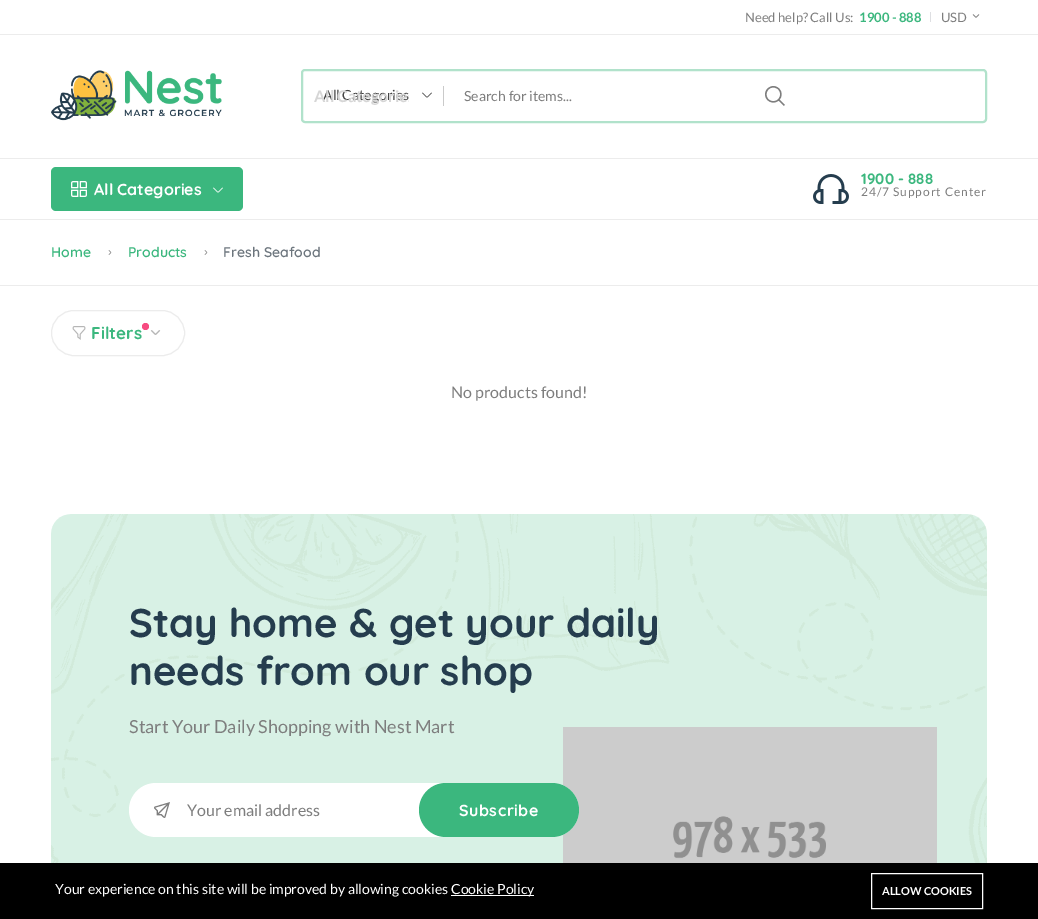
%!PS
<< /PageSize [1038 919] >> setpagedevice
/mt/moveto load def
/fl/fill load def
/st/stroke load def
/gs/gsave load def
/gr/grestore load def
/lw/setlinewidth load def
/co { dup -16 bitshift 255 div exch dup -8 bitshift 255 and 255 div exch 255 and 255 div setrgbcolor } def
/fn { [ exch dup neg 0 0 3 -1 roll 0 0 ] selectfont } def
/tx { co fn moveto show } def
/bx { co rectfill } def
/ci { newpath 0 360 arc closepath } def
/rr { 5 dict begin { /r /h /w /y /x } { exch def } forall
  x r add y moveto x w add y 2 copy h add r arct x w add y h add x 1 index r arct
  x y h add x y r arct x y 2 copy exch w add exch r arct closepath end } def
/im { 5 dict begin { /h /w /y /x /name } { exch def } forall
  gsave x y translate w h scale
  w h 8 [w 0 0 h 0 0] name (r) file false 3 colorimage grestore end } def
0 919 translate 1 -1 scale
4 setmiterlimit
0 0 1038 919 16#FFFFFF bx
0 34 1038 1 16#ECECEC bx
930 12 1 10 16#DEDFE2 bx
(media/1.raw) 972 14 8 4 im
(media/2.raw) 51 70 171 51 im
16#B1E2CB co
2 lw
302 70 684 52 3 rr st
(media/3.raw) 422 92 10 6 im
443 86 1 20 16#CACACA bx
(media/4.raw) 765 86 20 20 im
0 158 1038 1 16#ECECEC bx
0 219 1038 1 16#ECECEC bx
16#3BB77E co
51 167 192 44 5 rr fl
(media/5.raw) 71 181 16 16 im
(media/6.raw) 213 187 10 6 im
(media/7.raw) 813 174 36 30 im
0 285 1038 1 16#ECECEC bx
(media/8.raw) 108 250 4 5 im
(media/8.raw) 204 250 4 5 im
1 lw
51.5 310.5 133 45 22.5 rr st
(media/9.raw) 72 326 14 14 im
16#F74B81 co
145.5 326.5 3.5 ci fl
(media/10.raw) 150 330 11 5 im
(media/11.raw) 51 514 936 349 im
(media/13.raw) 563 727 374 136 im
16#FFFFFF co
129 783 450 54 27 rr fl
(media/12.raw) 154 802 16 16 im
16#3BB77E co
419 783 160 54 27 rr fl
0 863 1038 56 16#000000 bx
451 895 83 1 16#FFFFFF bx
871.5 873.5 111 35 rectstroke
(Need help? Call Us:) 745 22 /Lato-Regular 13 16#7E7E7E tx
(1900 - 888) 859 22 /Lato-Bold 13 16#3BB77E tx
(USD) 941 22 /Lato-Regular 13 16#7E7E7E tx
(All Categories) 323 100 /Lato-Regular 14 16#444444 tx
gs
314 84 95 24 rectclip
(All Categories) 314 102 /Lato-Bold 16 16#D6D6D6 tx
gr
(Search for items...) 464 101 /Lato-Regular 14 16#7E7E7E tx
(All Categories) 94 195 /Quicksand-Bold 16 16#FFFFFF tx
(1900 - 888) 861 184 /Quicksand-Bold 15 16#3BB77E tx
/Lato-Regular 12 fn
16#7E7E7E co
861 196 mt .9 0 (24/7 Support Center) ashow
(Home) 51 257 /Quicksand-SemiBold 14 16#3BB77E tx
(Products) 128 257 /Quicksand-SemiBold 14 16#3BB77E tx
(Fresh Seafood) 223 257 /Quicksand-SemiBold 14 16#6C757D tx
(Filters) 91 339 /Quicksand-Bold 17 16#3BB77E tx
(No products found!) 451 398 /Lato-Regular 16 16#7E7E7E tx
(Stay home & get your daily) 129 637 /Quicksand-Bold 40 16#253D4E tx
(needs from our shop) 129 685 /Quicksand-Bold 40 16#253D4E tx
(Start Your Daily Shopping with Nest Mart) 129 733 /Lato-Regular 18 16#7E7E7E tx
(Your email address) 187 816 /Lato-Regular 16 16#7E7E7E tx
/Quicksand-Bold 16 fn
16#FFFFFF co
459 816 mt .5 0 (Subscribe) ashow
(Your experience on this site will be improved by allowing cookies) 55 894 /Lato-Regular 14 16#FFFFFF tx
(Cookie Policy) 451 894 /Lato-Regular 14 16#FFFFFF tx
(ALLOW COOKIES) 882 895 /Lato-Bold 11 16#FFFFFF tx
showpage
